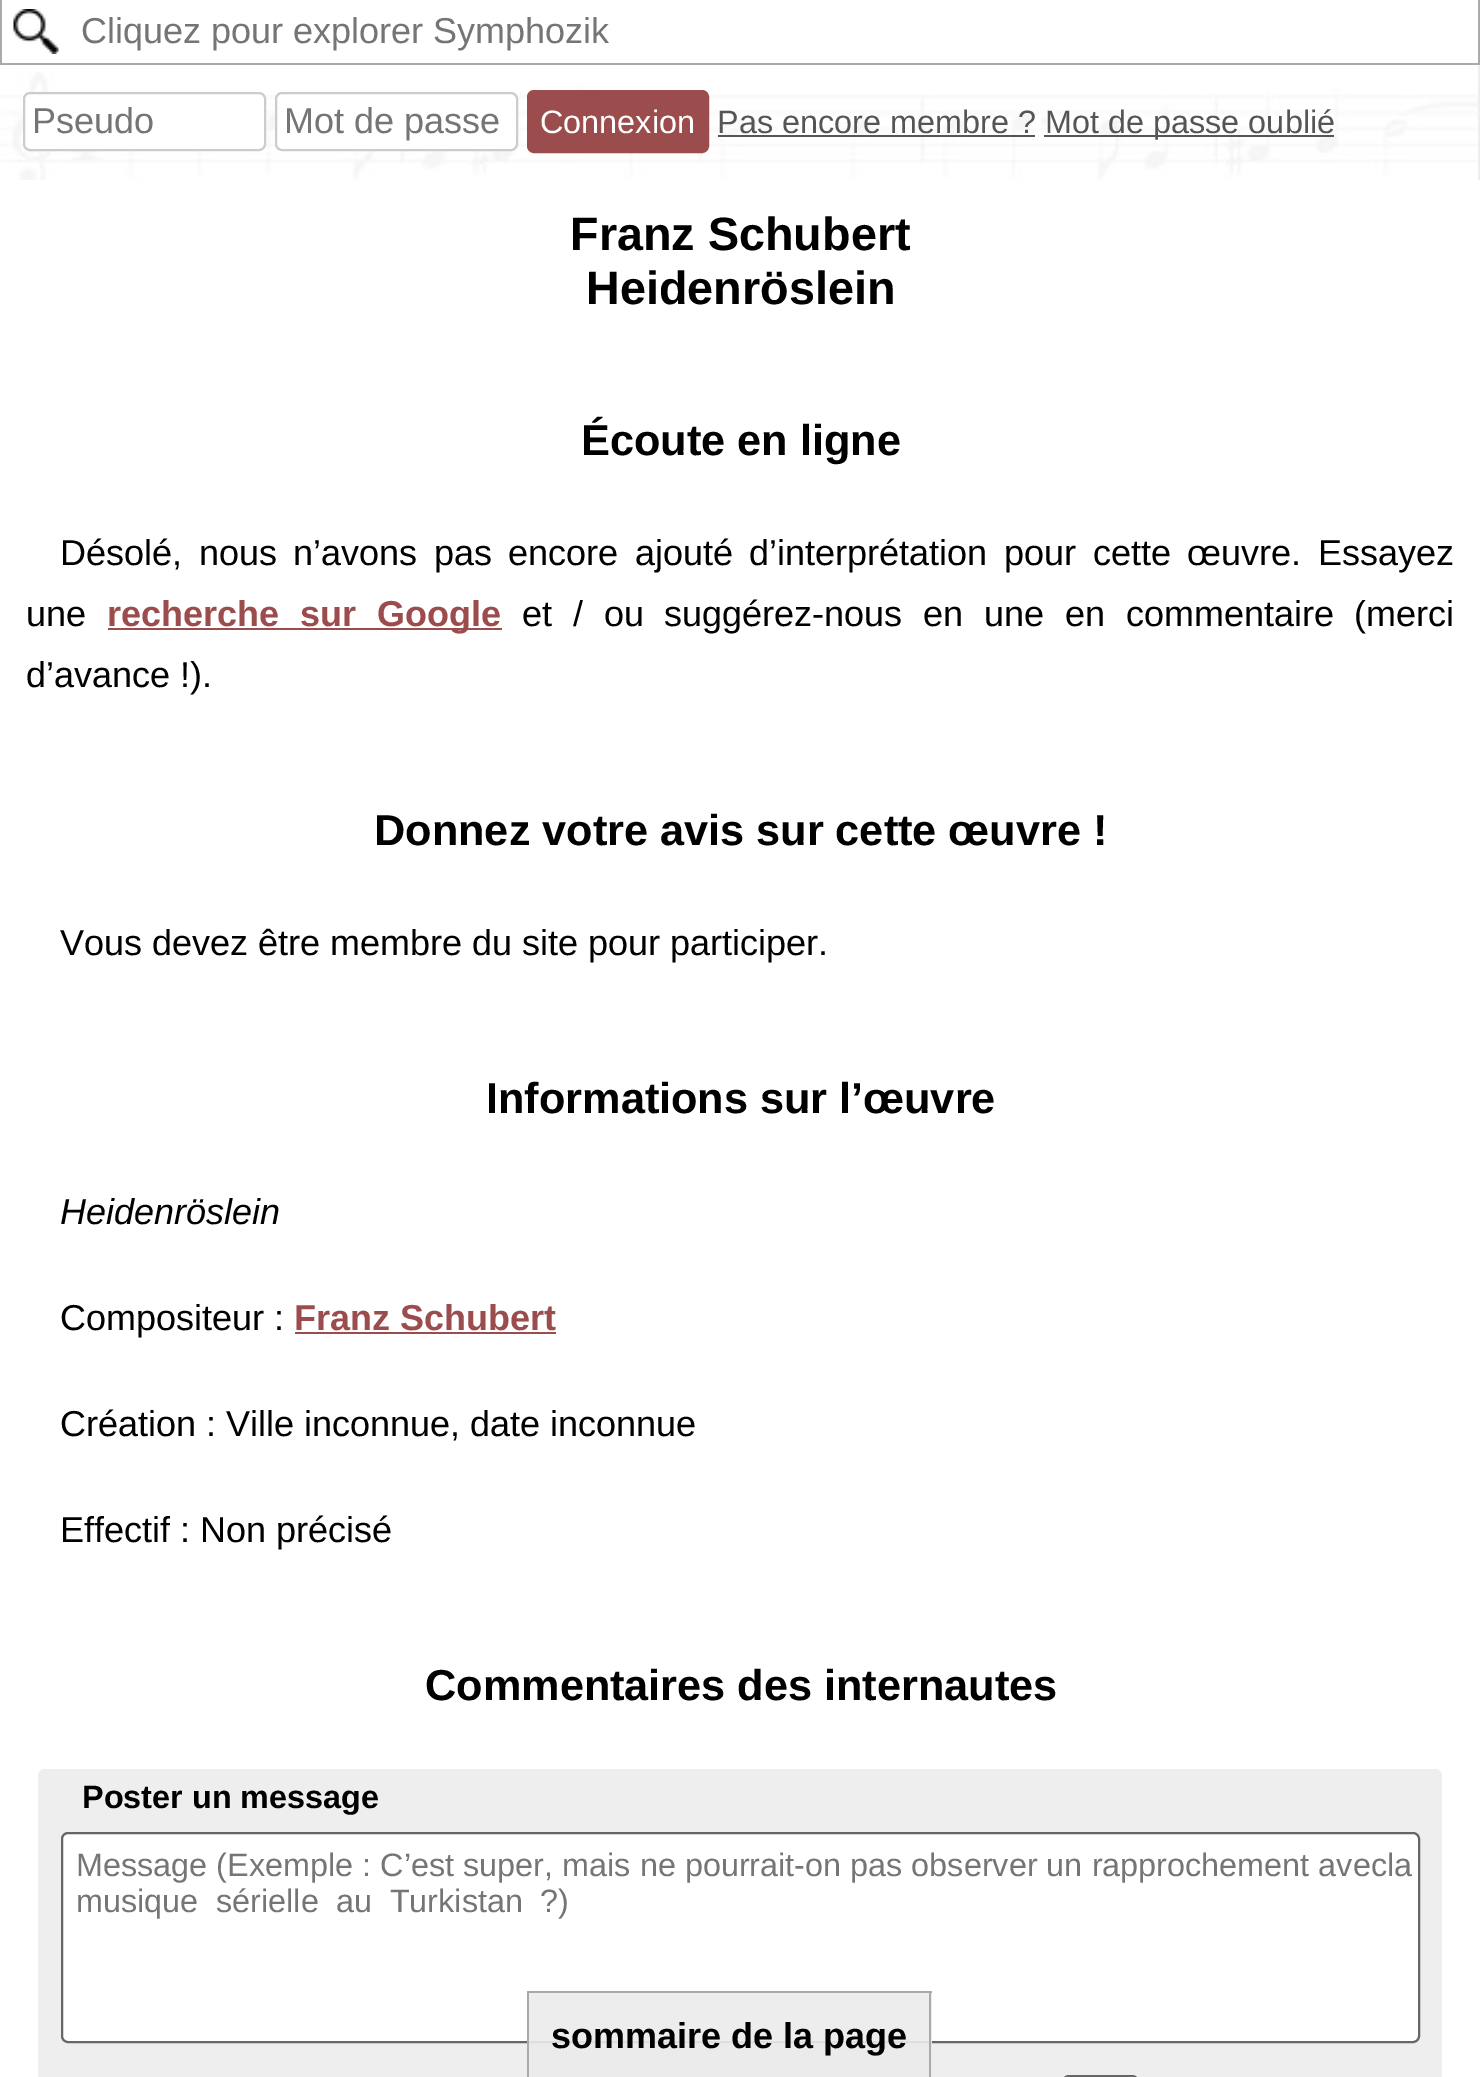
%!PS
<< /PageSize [1480 2077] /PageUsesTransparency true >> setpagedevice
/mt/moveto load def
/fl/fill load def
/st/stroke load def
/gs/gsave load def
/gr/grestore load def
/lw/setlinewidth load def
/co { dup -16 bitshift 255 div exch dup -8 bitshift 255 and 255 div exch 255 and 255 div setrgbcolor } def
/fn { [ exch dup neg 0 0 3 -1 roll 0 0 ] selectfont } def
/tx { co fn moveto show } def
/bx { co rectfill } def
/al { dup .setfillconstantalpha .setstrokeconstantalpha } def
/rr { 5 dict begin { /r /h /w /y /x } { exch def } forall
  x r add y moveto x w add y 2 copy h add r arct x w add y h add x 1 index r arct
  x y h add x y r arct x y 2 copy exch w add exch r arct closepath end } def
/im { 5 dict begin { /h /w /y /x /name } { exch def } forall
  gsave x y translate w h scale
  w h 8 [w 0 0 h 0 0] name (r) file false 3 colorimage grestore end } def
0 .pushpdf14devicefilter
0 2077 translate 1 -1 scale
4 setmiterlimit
0 0 1480 2077 16#FFFFFF bx
(media/1.raw) 13 9 46 45 im
1478 59 2 121 16#EEEEEE bx
1478 0 2 65 16#AAAAAA bx
0 63 1480 2 16#AAAAAA bx
0 0 2 65 16#AAAAAA bx
(media/2.raw) 0 72 1478 108 im
16#FFFFFF co
24 93 241 57 6 rr gs fl gr
16#CCCCCC co
2 lw
st
16#FFFFFF co
276 93 241 57 6 rr gs fl gr
16#CCCCCC co
st
16#9B4D4D co
528 91 180 61 6 rr gs fl gr
st
718 135 317 2 16#555555 bx
1044 135 290 2 16#555555 bx
108 628 394 2 16#9B4D4D bx
295 1332 261 2 16#9B4D4D bx
16#EEEEEE co
38 1769 1404 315 7 rr fl
16#FFFFFF co
62 1833 1357 209 6 rr gs fl gr
16#666666 co
st
1063 2076 75 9 6 rr st
0.9 al
529 1993 403 84 16#EBEBEB bx
1 al
527 1991 405 2 16#AAAAAA bx
929 1991 2 86 16#AAAAAA bx
527 1991 2 86 16#AAAAAA bx
(Cliquez pour explorer Symphozik) 81 43 /LiberationSans-Regular 36 16#757575 tx
(Pseudo) 32 133 /LiberationSans-Regular 36 16#757575 tx
(Mot de passe) 284 133 /LiberationSans-Regular 36 16#757575 tx
(Connexion) 540 133 /LiberationSans-Regular 32.4 16#FFFFFF tx
(Pas encore membre ?) 717 133 /LiberationSans-Regular 32.4 16#555555 tx
(Mot de passe oublié) 1045 133 /LiberationSans-Regular 32.4 16#555555 tx
(Franz Schubert) 570 250 /LiberationSans-Bold 46.75 16#000000 tx
(Heidenröslein) 586 304 /LiberationSans-Bold 46.75 16#000000 tx
(Écoute en ligne) 581 455 /LiberationSans-Bold 43.25 16#000000 tx
/LiberationSans-Regular 36 fn
60 565 mt 6.5 0 32 (Désolé, nous n’avons pas encore ajouté d’interprétation pour cette œuvre. Essayez) widthshow
(une) 26 626 /LiberationSans-Regular 36 16#000000 tx
/LiberationSans-Bold 36 fn
16#9B4D4D co
107 626 mt 10.75 0 32 (recherche sur Google) widthshow
/LiberationSans-Regular 36 fn
16#000000 co
522 626 mt 10.75 0 32 (et / ou suggérez-nous en une en commentaire \(merci) widthshow
(d’avance !\).) 26 687 /LiberationSans-Regular 36 16#000000 tx
(Donnez votre avis sur cette œuvre !) 374 845 /LiberationSans-Bold 43.25 16#000000 tx
(Vous devez être membre du site pour participer.) 60 955 /LiberationSans-Regular 36 16#000000 tx
(Informations sur l’œuvre) 486 1113 /LiberationSans-Bold 43.25 16#000000 tx
(Heidenröslein) 60 1224 /LiberationSans-Italic 36 16#000000 tx
(Compositeur :) 60 1330 /LiberationSans-Regular 36 16#000000 tx
(Franz Schubert) 294 1330 /LiberationSans-Bold 36 16#9B4D4D tx
(Création : Ville inconnue, date inconnue) 60 1436 /LiberationSans-Regular 36 16#000000 tx
(Effectif : Non précisé) 60 1542 /LiberationSans-Regular 36 16#000000 tx
(Commentaires des internautes) 425 1700 /LiberationSans-Bold 43.25 16#000000 tx
(Poster un message) 82 1808 /LiberationSans-Bold 32.4 16#000000 tx
(Message \(Exemple : C’est super, mais ne pourrait-on pas observer un rapprochement avecla) 76 1876 /LiberationSans-Regular 32.4 16#757575 tx
76 1912 mt 8.5 0 32 (musique sérielle au Turkistan ?\)) widthshow
(sommaire de la page) 551 2048 /LiberationSans-Bold 36 16#000000 tx
.poppdf14devicefilter showpage
